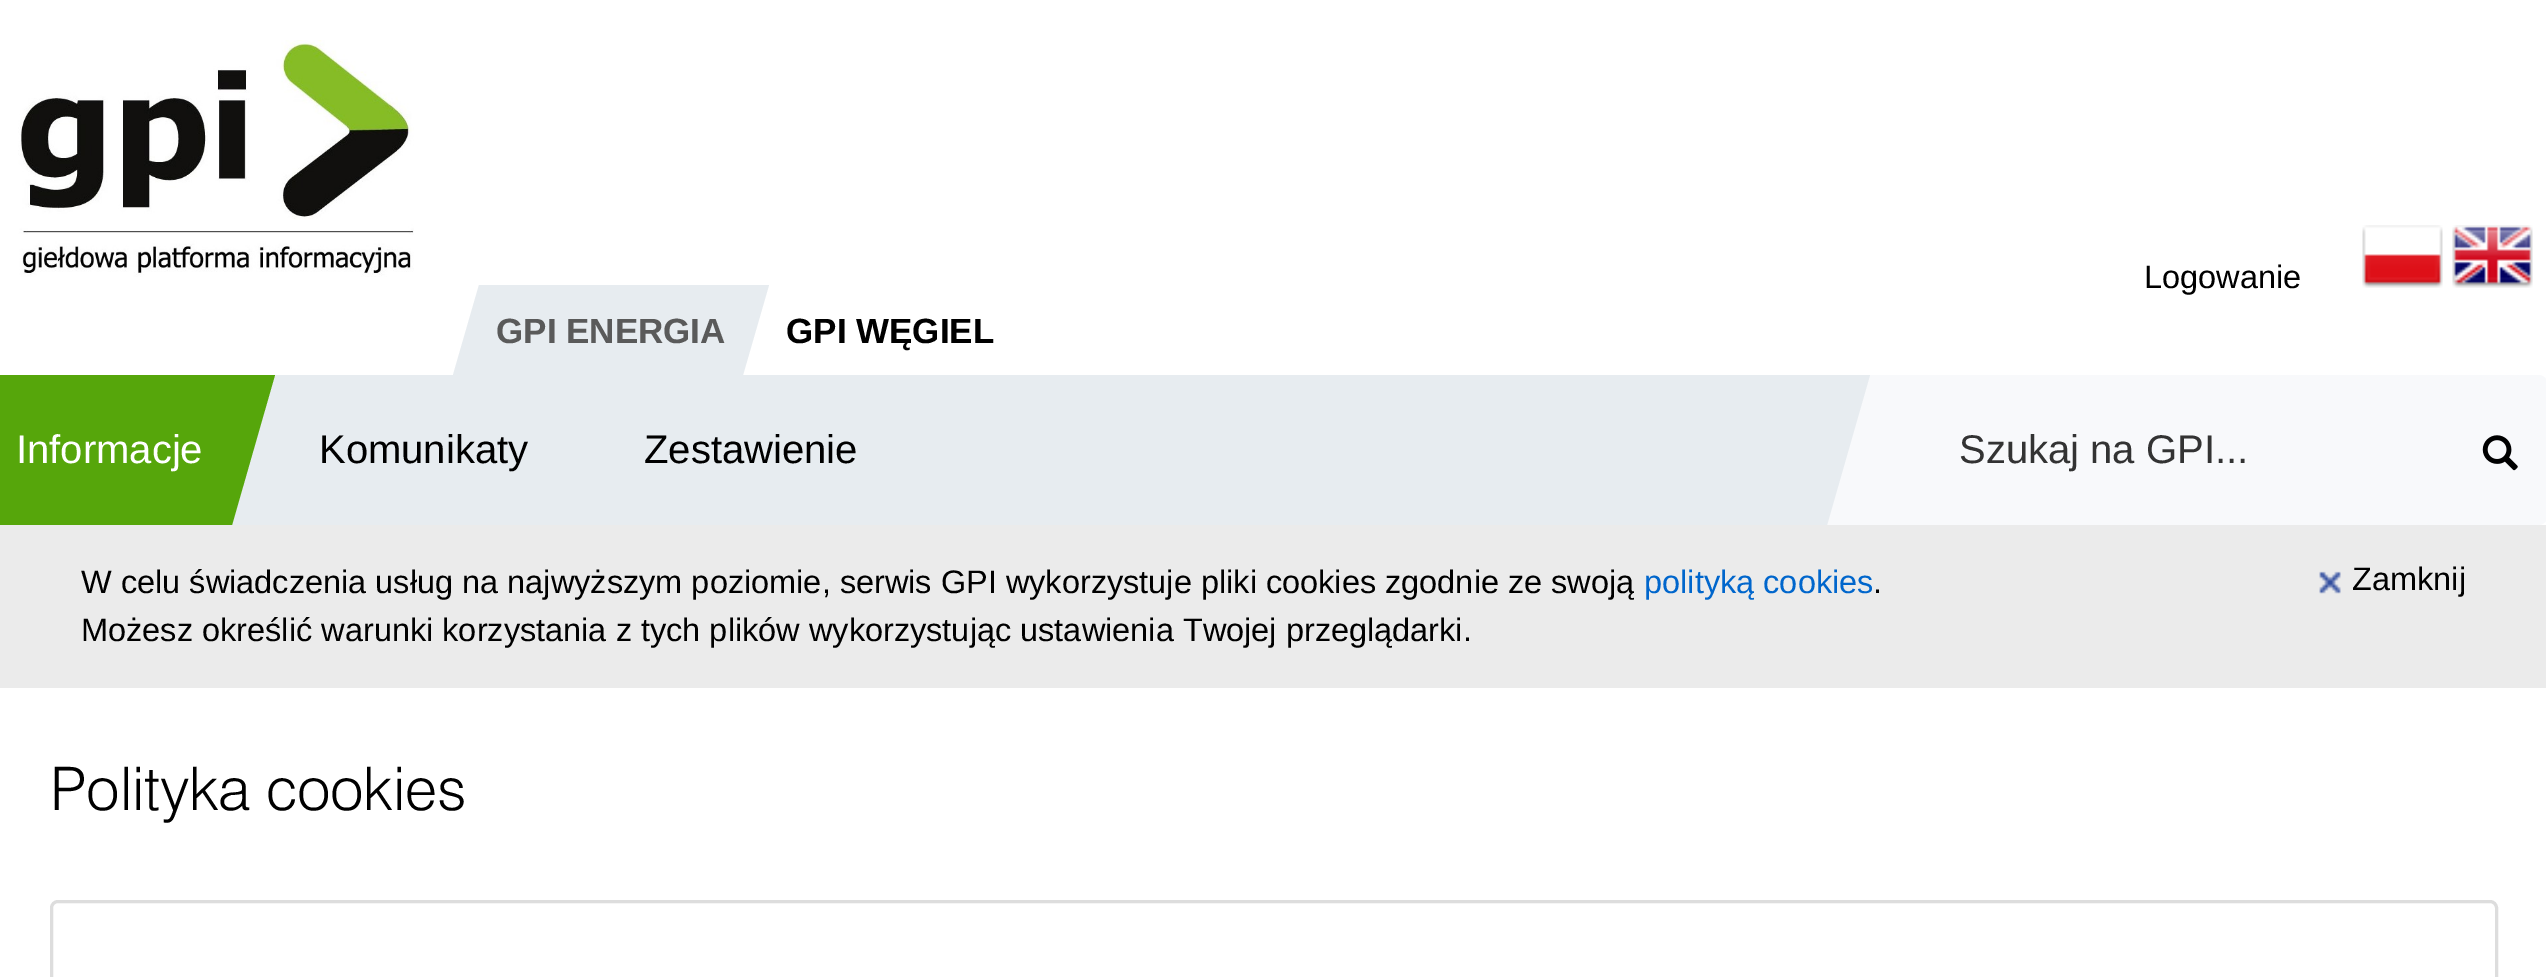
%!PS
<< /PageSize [2546 977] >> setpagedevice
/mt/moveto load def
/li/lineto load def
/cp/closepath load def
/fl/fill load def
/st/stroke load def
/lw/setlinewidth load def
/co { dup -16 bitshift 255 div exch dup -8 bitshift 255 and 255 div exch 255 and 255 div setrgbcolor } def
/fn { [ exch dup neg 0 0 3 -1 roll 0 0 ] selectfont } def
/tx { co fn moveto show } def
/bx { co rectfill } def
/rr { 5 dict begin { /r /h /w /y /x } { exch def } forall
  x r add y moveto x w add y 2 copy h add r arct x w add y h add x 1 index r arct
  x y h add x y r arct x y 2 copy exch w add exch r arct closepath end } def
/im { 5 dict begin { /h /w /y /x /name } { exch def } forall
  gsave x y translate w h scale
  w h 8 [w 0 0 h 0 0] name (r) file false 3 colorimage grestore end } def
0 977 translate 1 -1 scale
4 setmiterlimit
0 0 2546 977 16#FFFFFF bx
(media/1.raw) 18 40 396 237 im
(media/2.raw) 2362 225 81 63 im
(media/3.raw) 2452 225 81 63 im
16#E7ECF0 co
479 285 mt 529 285 li 503 375 li 453 375 li cp fl
719 285 mt 769 285 li 743 375 li 693 375 li cp fl
503 285 216 90 16#E7ECF0 bx
16#F8F9FB co
0 375 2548 150 10 rr fl
16#E7ECF0 co
-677 375 mt 1870 375 li 1827 525 li -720 525 li cp fl
0 375 225 150 16#56A60B bx
225 375 mt 275 375 li 232 525 li 182 525 li cp fl
(media/4.raw) 2482 435 36 36 im
0 525 2546 163 16#EBEBEB bx
(media/5.raw) 2319 571 22 23 im
16#DDDDDD co
3 lw
51.5 901.5 2445 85 6.5 rr st
(Logowanie) 2144 288 /LiberationSans-Regular 32.5 16#000000 tx
(GPI ENERGIA) 496 343 /LiberationSans-Bold 35 16#5A5A5A tx
(GPI WĘGIEL) 786 343 /LiberationSans-Bold 35 16#000000 tx
(Informacje) 16 463 /LiberationSans-Regular 40 16#FFFFFF tx
(Komunikaty) 319 463 /LiberationSans-Regular 40 16#000000 tx
(Zestawienie) 644 463 /LiberationSans-Regular 40 16#000000 tx
(Szukaj na GPI...) 1959 463 /LiberationSans-Regular 40 16#333333 tx
(W celu świadczenia usług na najwyższym poziomie, serwis GPI wykorzystuje pliki cookies zgodnie ze swoją) 81 593 /LiberationSans-Regular 32.5 16#000000 tx
(polityką cookies) 1644 593 /LiberationSans-Regular 32.5 16#0066CC tx
(.) 1873 593 /LiberationSans-Regular 32.5 16#000000 tx
(Możesz określić warunki korzystania z tych plików wykorzystując ustawienia Twojej przeglądarki.) 81 641 /LiberationSans-Regular 32.5 16#000000 tx
(Zamknij) 2352 590 /LiberationSans-Regular 32.5 16#000000 tx
(Polityka cookies) 50 810 /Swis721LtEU-Regular 60 16#000000 tx
showpage
